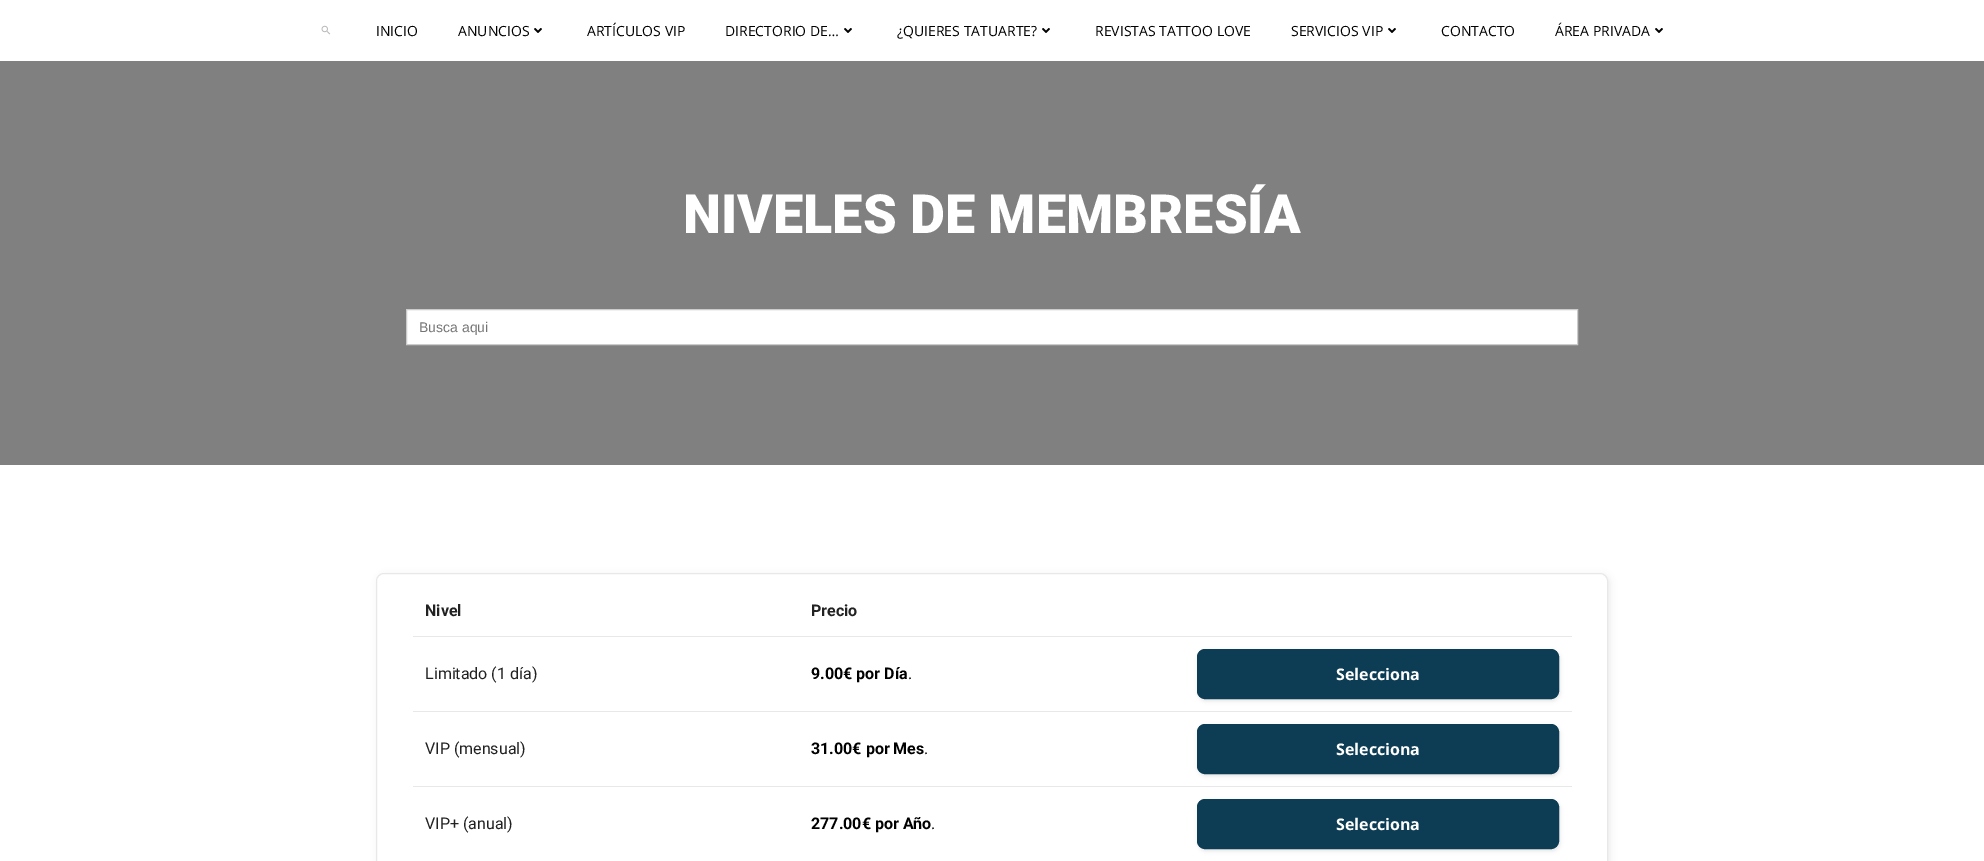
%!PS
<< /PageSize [1984 861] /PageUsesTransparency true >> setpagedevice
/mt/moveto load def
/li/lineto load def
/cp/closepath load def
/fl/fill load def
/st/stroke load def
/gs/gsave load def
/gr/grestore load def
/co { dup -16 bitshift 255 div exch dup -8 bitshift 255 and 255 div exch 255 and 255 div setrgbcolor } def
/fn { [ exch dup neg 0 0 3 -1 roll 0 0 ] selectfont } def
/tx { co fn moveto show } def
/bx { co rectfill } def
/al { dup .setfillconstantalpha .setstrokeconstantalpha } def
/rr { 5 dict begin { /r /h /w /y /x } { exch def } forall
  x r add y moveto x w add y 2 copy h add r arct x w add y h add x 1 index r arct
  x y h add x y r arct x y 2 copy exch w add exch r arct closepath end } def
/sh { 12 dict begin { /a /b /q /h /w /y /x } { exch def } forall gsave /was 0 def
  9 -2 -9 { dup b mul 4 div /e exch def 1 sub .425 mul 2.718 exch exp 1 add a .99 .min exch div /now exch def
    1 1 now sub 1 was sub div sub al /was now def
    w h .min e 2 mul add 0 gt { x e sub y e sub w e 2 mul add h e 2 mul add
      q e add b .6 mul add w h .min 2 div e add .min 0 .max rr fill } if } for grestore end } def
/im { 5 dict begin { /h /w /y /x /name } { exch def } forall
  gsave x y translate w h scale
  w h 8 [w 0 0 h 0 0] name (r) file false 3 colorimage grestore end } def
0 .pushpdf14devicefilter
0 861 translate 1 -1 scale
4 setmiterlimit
0 0 1984 861 16#FFFFFF bx
(media/1.raw) 321 25 10 10 im
(media/2.raw) 534 28 8 5 im
(media/2.raw) 844 28 8 5 im
(media/2.raw) 1042 28 8 5 im
(media/2.raw) 1388 28 8 5 im
(media/2.raw) 1655 28 8 5 im
0 61 1984 404 16#808080 bx
16#FFFFFF co
406.5 309.5 mt 1577.5 309.5 li 1577.5 344.5 li 406.5 344.5 li cp gs fl gr
16#CCCCCC co
st
16#000000 co
378 575 1232 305 8 3.5 .07 sh
16#FFFFFF co
376.5 573.5 1231 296 7.5 rr gs fl gr
16#E8E8E8 co
st
413 636 1159 1 16#E8E8E8 bx
16#000000 co
1198 651 362 50 8 2 .1 sh
16#0C3D54 co
1197.5 649.5 361 49 7.5 rr gs fl gr
st
413 711 1159 1 16#E8E8E8 bx
16#000000 co
1198 726 362 50 8 2 .1 sh
16#0C3D54 co
1197.5 724.5 361 49 7.5 rr gs fl gr
st
413 786 1159 1 16#E8E8E8 bx
16#000000 co
1198 801 362 50 8 2 .1 sh
16#0C3D54 co
1197.5 799.5 361 49 7.5 rr gs fl gr
st
(INICIO) 376 36 /OpenSans-Regular 14 16#000000 tx
(ANUNCIOS) 458 36 /OpenSans-Regular 14 16#000000 tx
(ARTÍCULOS VIP) 587 36 /OpenSans-Regular 14 16#000000 tx
(DIRECTORIO DE…) 725 36 /OpenSans-Regular 14 16#000000 tx
(¿QUIERES TATUARTE?) 897 36 /OpenSans-Regular 14 16#000000 tx
(REVISTAS TATTOO LOVE) 1095 36 /OpenSans-Regular 14 16#000000 tx
(SERVICIOS VIP) 1291 36 /OpenSans-Regular 14 16#000000 tx
(CONTACTO) 1441 36 /OpenSans-Regular 14 16#000000 tx
(ÁREA PRIVADA) 1555 36 /OpenSans-Regular 14 16#000000 tx
(NIVELES DE MEMBRESÍA) 683 233 /Roboto-Black 54 16#FFFFFF tx
(Busca aqui) 419 332 /LiberationSans-Regular 14 16#757575 tx
(Nivel) 425 616 /Roboto-Bold 16 16#222222 tx
(Precio) 811 616 /Roboto-Bold 16 16#222222 tx
(Limitado \(1 día\)) 425 679 /Roboto-Regular 16 16#222222 tx
(9.00€ por Día) 811 679 /Roboto-Bold 16 16#000000 tx
(.) 908 679 /Roboto-Regular 16 16#000000 tx
(Selecciona) 1336 680 /OpenSans-Bold 16 16#FFFFFF tx
(VIP \(mensual\)) 425 754 /Roboto-Regular 16 16#222222 tx
(31.00€ por Mes) 811 754 /Roboto-Bold 16 16#000000 tx
(.) 924 754 /Roboto-Regular 16 16#000000 tx
(Selecciona) 1336 755 /OpenSans-Bold 16 16#FFFFFF tx
(VIP+ \(anual\)) 425 829 /Roboto-Regular 16 16#222222 tx
(277.00€ por Año) 811 829 /Roboto-Bold 16 16#000000 tx
(.) 931 829 /Roboto-Regular 16 16#000000 tx
(Selecciona) 1336 830 /OpenSans-Bold 16 16#FFFFFF tx
.poppdf14devicefilter showpage
